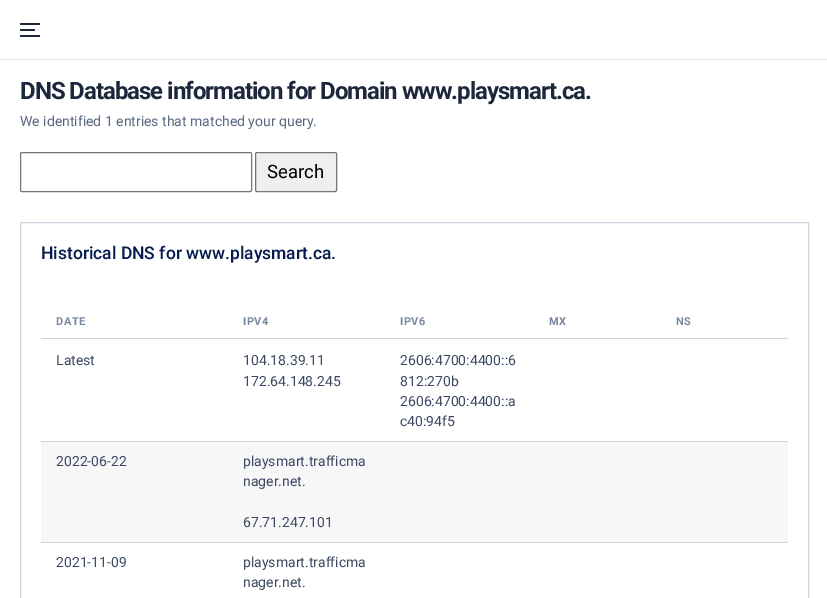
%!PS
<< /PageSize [827 598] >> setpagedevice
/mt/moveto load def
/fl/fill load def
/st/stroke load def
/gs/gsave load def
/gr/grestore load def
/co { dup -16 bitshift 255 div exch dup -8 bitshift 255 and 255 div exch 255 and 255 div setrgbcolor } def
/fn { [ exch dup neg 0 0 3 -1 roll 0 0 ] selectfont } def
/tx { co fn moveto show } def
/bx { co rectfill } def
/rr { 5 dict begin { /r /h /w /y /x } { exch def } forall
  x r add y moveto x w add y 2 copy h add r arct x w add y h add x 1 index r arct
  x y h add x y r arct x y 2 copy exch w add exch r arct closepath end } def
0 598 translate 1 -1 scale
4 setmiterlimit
0 0 827 598 16#FFFFFF bx
0 59 827 1 16#E4E5E8 bx
16#1C273C co
20 29 15 2 1 rr fl
20 23 20 2 1 rr fl
20 35 20 2 1 rr fl
16#767676 co
20.5 152.5 231 39 1.5 rr st
16#EFEFEF co
255.5 152.5 81 39 1.5 rr gs fl gr
16#767676 co
st
16#CDD4E0 co
20.5 222.5 788 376 rectstroke
41 338 747 1 16#CDD4E0 bx
41 442 747 100 16#F7F7F7 bx
41 441 747 1 16#CDD4E0 bx
41 542 747 1 16#CDD4E0 bx
/Roboto-Bold 24 fn
16#1C273C co
20 99 mt -1 0 (DNS Database information for Domain www.playsmart.ca.) ashow
(We identified 1 entries that matched your query.) 20 126 /Roboto-Regular 14 16#596882 tx
(Search) 267 178 /Roboto-Regular 18.5 16#000000 tx
(Historical DNS for www.playsmart.ca.) 41 259 /Roboto-Medium 17.5 16#031B4E tx
/Roboto-Bold 11 fn
16#7987A1 co
56 325 mt .5 0 (DATE) ashow
243 325 mt .5 0 (IPV4) ashow
400 325 mt .5 0 (IPV6) ashow
549 325 mt .5 0 (MX) ashow
676 325 mt .5 0 (NS) ashow
(Latest) 56 365 /Roboto-Regular 14 16#3B4863 tx
(104.18.39.11) 243 365 /Roboto-Regular 14 16#3B4863 tx
(172.64.148.245) 243 386 /Roboto-Regular 14 16#3B4863 tx
(2606:4700:4400::6) 400 365 /Roboto-Regular 14 16#3B4863 tx
(812:270b) 400 386 /Roboto-Regular 14 16#3B4863 tx
(2606:4700:4400::a) 400 406 /Roboto-Regular 14 16#3B4863 tx
(c40:94f5) 400 426 /Roboto-Regular 14 16#3B4863 tx
(2022-06-22) 56 466 /Roboto-Regular 14 16#3B4863 tx
(playsmart.trafficma) 243 466 /Roboto-Regular 14 16#3B4863 tx
(nager.net.) 243 486 /Roboto-Regular 14 16#3B4863 tx
(67.71.247.101) 243 527 /Roboto-Regular 14 16#3B4863 tx
(2021-11-09) 56 567 /Roboto-Regular 14 16#3B4863 tx
(playsmart.trafficma) 243 567 /Roboto-Regular 14 16#3B4863 tx
(nager.net.) 243 587 /Roboto-Regular 14 16#3B4863 tx
showpage
